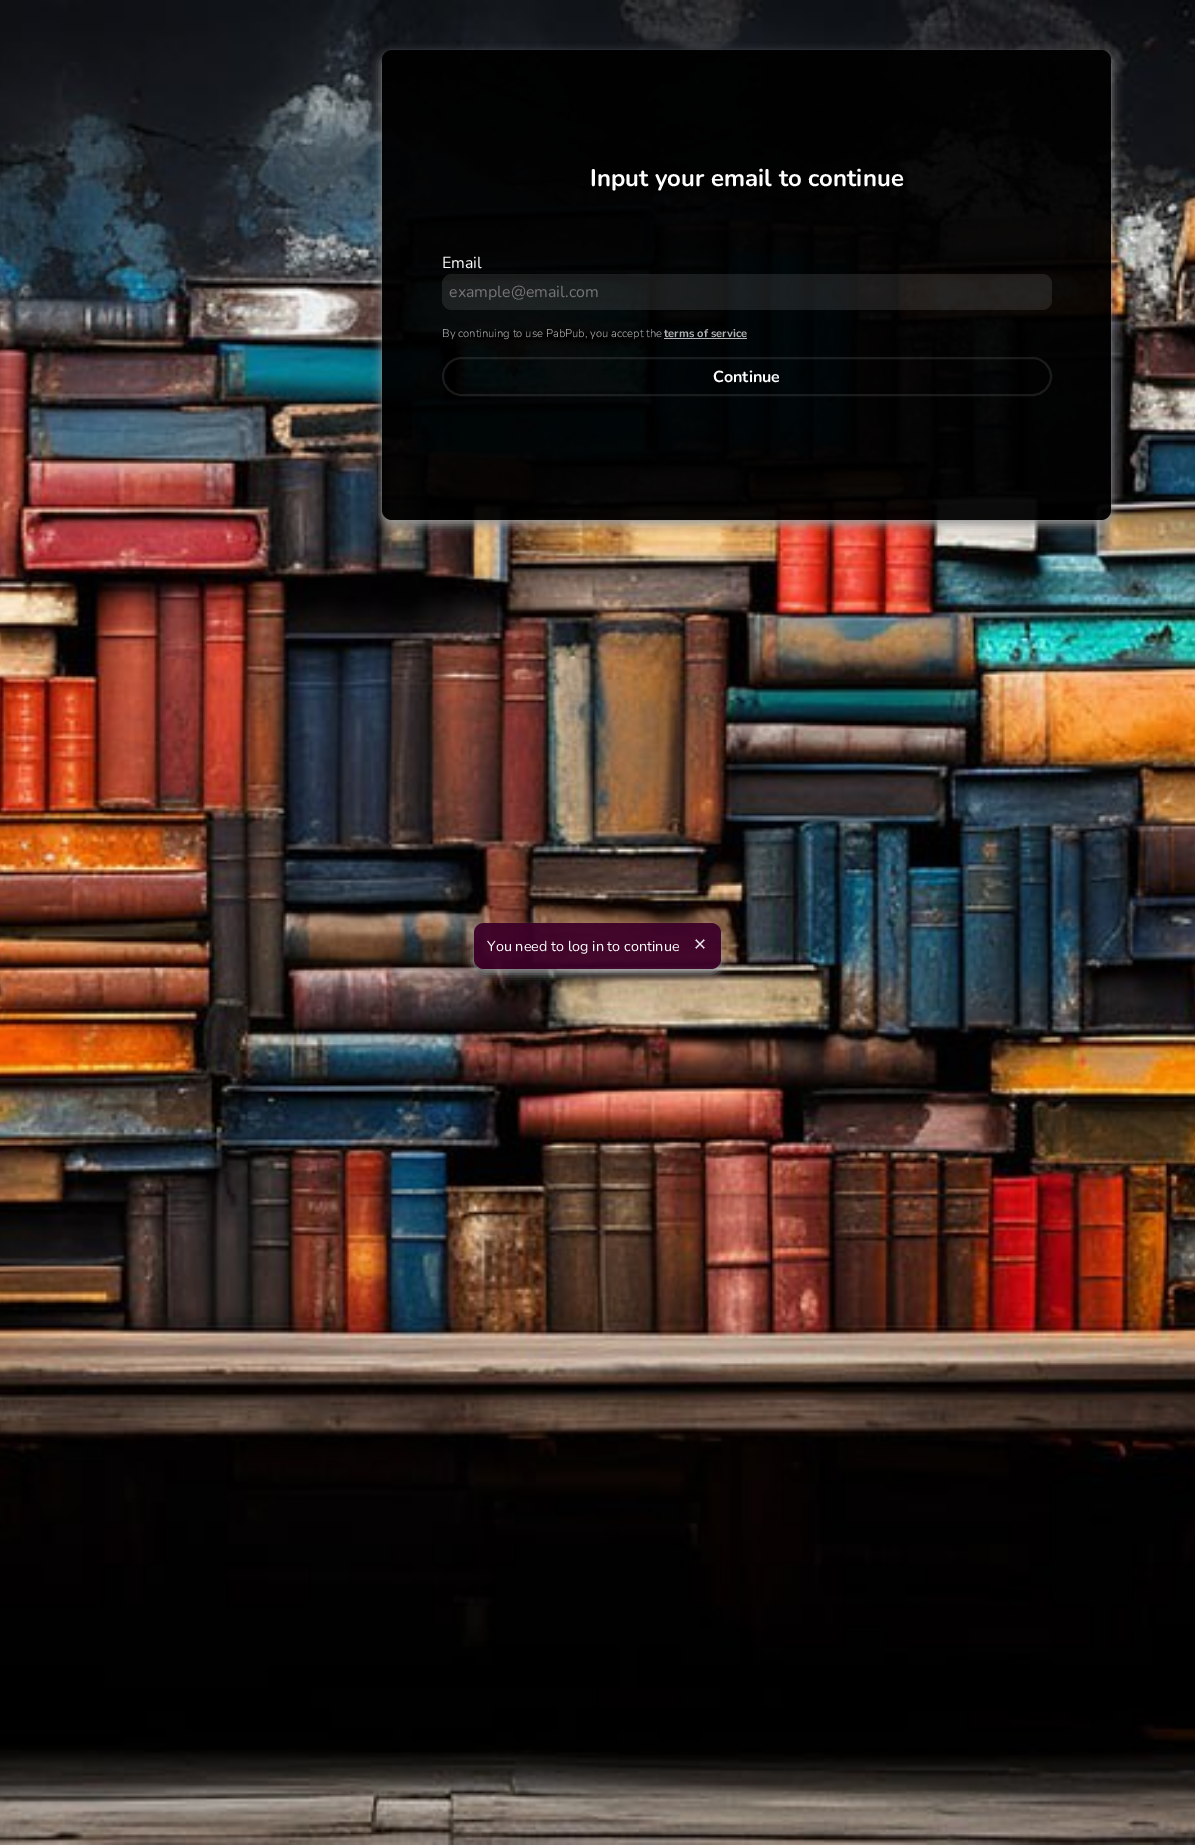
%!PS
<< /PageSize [1195 1845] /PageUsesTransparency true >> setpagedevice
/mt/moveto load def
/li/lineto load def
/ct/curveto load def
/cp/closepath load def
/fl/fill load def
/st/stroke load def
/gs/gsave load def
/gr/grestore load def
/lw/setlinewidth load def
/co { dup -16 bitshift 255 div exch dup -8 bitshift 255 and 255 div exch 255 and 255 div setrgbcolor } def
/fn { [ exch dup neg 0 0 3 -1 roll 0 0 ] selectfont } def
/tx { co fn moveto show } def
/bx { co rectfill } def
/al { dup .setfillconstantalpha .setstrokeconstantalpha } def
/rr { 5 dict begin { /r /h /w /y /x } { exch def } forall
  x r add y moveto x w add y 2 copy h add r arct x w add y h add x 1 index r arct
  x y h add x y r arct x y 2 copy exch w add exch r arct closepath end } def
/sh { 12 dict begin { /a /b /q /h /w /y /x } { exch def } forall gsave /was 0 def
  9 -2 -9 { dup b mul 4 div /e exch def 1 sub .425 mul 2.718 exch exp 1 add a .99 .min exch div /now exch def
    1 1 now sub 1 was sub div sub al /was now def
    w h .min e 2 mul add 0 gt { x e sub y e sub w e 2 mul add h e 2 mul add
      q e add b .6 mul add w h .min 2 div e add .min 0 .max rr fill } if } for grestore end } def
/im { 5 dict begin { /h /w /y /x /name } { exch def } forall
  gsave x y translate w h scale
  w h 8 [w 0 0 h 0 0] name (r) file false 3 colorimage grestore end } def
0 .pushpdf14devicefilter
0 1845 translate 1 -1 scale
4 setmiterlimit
0 0 1195 1845 16#FFFFFF bx
(media/1.raw) 0 0 1195 1845 im
gs
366 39 mt 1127 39 li 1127 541 li 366 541 li cp 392 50 mt 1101 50 li 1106.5 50 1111 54.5 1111 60 ct 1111 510 li 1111 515.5 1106.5 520 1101 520 ct 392 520 li 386.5 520 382 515.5 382 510 ct 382 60 li 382 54.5 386.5 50 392 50 ct cp eoclip newpath
16#999999 co
382 55 729 470 10 5 1 sh
gr
0.95 al
16#000000 co
382 50 729 470 10 rr fl
0.2 al
16#7E7E7E co
442 274 610 36 10 rr fl
0.7 al
664 338 83 1 16#FFFFFF bx
0.2 al
16#7E7E7E co
2 lw
443 358 608 37 18.5 rr st
gs
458 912 mt 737 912 li 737 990 li 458 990 li cp 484 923 mt 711 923 li 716.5 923 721 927.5 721 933 ct 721 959 li 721 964.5 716.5 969 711 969 ct 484 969 li 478.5 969 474 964.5 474 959 ct 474 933 li 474 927.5 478.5 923 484 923 ct cp eoclip newpath
1 al
16#999999 co
474 928 247 46 10 5 1 sh
gr
0.95 al
16#3C0028 co
474 923 247 46 10 rr fl
1 al
(media/2.raw) 694 938 12 12 im
(Input your email to continue) 590 186 /Nunito-Bold 24 16#FFFFFF tx
(Email) 442 268 /Nunito-Regular 16 16#FFFFFF tx
(example@email.com) 449 297 /Nunito-Regular 16 16#757575 tx
(By continuing to use PabPub, you accept the) 442 337 /Nunito-Light 11.25 16#B4B4B4 tx
(terms of service) 664 337 /Nunito-Bold 11.25 16#B4B4B4 tx
(Continue) 713 382 /Nunito-Bold 16 16#FFFFFF tx
(You need to log in to continue) 487 951 /Nunito-Regular 14.4 16#FFFFFF tx
.poppdf14devicefilter showpage
